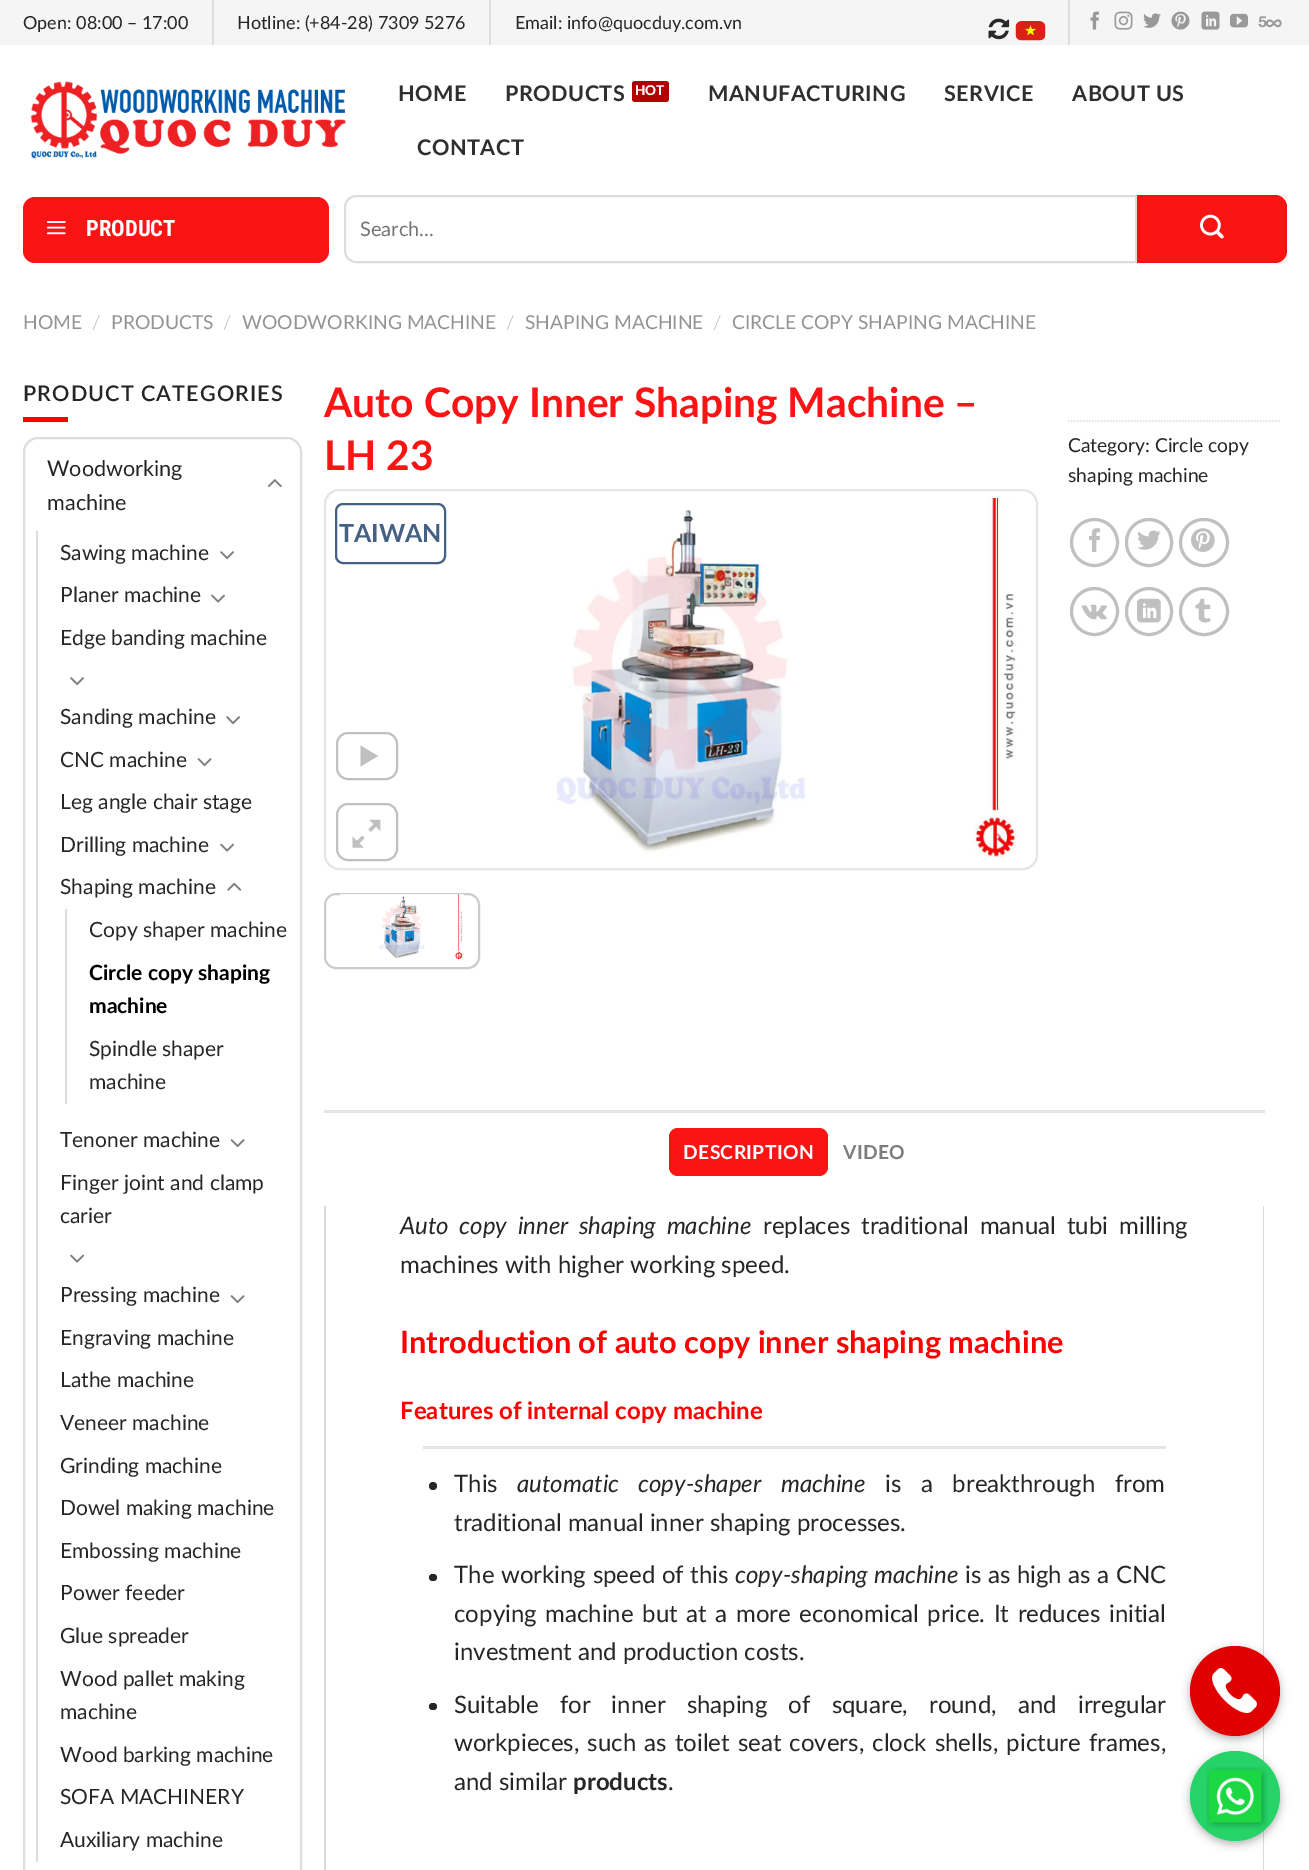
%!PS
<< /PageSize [1309 1870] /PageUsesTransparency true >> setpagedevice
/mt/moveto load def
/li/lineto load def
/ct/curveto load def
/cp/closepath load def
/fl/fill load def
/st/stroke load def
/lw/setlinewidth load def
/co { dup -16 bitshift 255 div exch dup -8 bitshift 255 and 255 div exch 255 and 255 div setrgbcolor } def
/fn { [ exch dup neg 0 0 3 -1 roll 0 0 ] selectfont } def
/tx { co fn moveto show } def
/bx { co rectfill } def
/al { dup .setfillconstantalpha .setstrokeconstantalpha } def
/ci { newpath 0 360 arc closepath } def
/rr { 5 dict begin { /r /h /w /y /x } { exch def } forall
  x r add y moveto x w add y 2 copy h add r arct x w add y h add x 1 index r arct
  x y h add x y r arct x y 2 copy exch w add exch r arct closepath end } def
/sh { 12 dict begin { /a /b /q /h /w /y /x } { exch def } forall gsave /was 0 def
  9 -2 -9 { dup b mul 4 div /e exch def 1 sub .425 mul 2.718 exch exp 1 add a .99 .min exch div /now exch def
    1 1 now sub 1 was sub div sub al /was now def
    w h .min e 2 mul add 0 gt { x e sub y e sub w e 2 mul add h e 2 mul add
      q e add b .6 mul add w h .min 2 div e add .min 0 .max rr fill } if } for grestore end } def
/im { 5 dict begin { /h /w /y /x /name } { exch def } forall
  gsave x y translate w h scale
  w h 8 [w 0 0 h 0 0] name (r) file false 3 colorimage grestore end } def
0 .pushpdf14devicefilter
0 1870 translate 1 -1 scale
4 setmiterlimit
0 0 1309 1870 16#FFFFFF bx
0 0 1309 45 16#F5F5F5 bx
212 0 2 45 16#DDDDDD bx
489 0 2 45 16#DDDDDD bx
1068 0 2 45 16#DDDDDD bx
(media/1.raw) 1090 11 9 19 im
(media/2.raw) 1114 11 19 19 im
(media/3.raw) 1143 13 18 15 im
(media/4.raw) 1171 11 19 19 im
(media/5.raw) 1201 11 19 19 im
(media/6.raw) 1230 13 18 15 im
(media/7.raw) 1258 16 24 12 im
(media/8.raw) 30 81 316 78 im
16#B20000 co
632 81 37 21 3 rr fl
16#FA1414 co
23 197 306 66 12 rr fl
(media/9.raw) 46 221 20 14 im
16#DDDDDD co
2 lw
356 196 mt 1136 196 li 1136 262 li 356 262 li 350 262 345 257 345 251 ct 345 207 li 345 201 350 196 356 196 ct cp st
16#FA1414 co
1137 195 mt 1275 195 li 1281.5 195 1287 200.5 1287 207 ct 1287 251 li 1287 257.5 1281.5 263 1275 263 ct 1137 263 li cp fl
0.05 al
16#000000 co
1138 196 148 66 rectstroke
1 al
(media/10.raw) 1200 214 24 25 im
23 417 45 5 16#FF0000 bx
16#DDDDDD co
24 438 277 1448 14 rr st
(media/11.raw) 268 479 14 9 im
36 531 2 1331 16#DDDDDD bx
(media/12.raw) 220 551 14 9 im
(media/13.raw) 211 594 14 9 im
(media/12.raw) 70 677 14 9 im
(media/12.raw) 226 716 14 9 im
(media/14.raw) 197 758 15 9 im
(media/13.raw) 220 843 14 9 im
(media/15.raw) 227 882 15 9 im
65 909 2 195 16#DDDDDD bx
(media/14.raw) 230 1139 15 9 im
(media/13.raw) 70 1254 14 9 im
(media/14.raw) 230 1295 15 9 im
(media/16.raw) 988 18 22 22 im
(media/17.raw) 1015 21 31 20 im
16#E5E5E5 co
325 490 712 379 14 rr st
16#446084 co
336 504 109 59 7 rr st
(media/18.raw) 556 498 461 361 im
16#C0C0C0 co
337 733 60 46 11 rr st
360.5 745.5 mt 378 756 li 360.5 766.5 li cp fl
337 804 60 56 11 rr st
(media/19.raw) 352 819 29 29 im
16#CCCCCC co
325 894 154 74 11 rr st
(media/20.raw) 340 894 124 66 im
16#DDDDDD co
1.5 lw
[1.5 1.5] 0 setdash
1068 421 mt 1279.5 421 li st
16#C0C0C0 co
3 lw
[] 0 setdash
1094.5 542.5 23 ci st
(media/21.raw) 1089 528 11 24 im
1126.5 519.5 45 46 22.5 rr st
(media/22.raw) 1137 530 24 20 im
1180.5 519.5 47 46 23 rr st
(media/23.raw) 1191 528 24 24 im
1094.5 611.5 23 ci st
(media/24.raw) 1081 604 26 16 im
1126.5 588.5 45 46 22.5 rr st
(media/25.raw) 1137 598 24 25 im
1180.5 588.5 47 46 23 rr st
(media/26.raw) 1195 598 16 25 im
324 1110 941 3 16#E5E5E5 bx
16#FA1414 co
669 1128 159 48 9 rr fl
16#DBDBDB co
324 1206 mt 1264 1206 li 1264 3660 li 1264 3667 1259 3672 1252 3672 ct 336 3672 li 329 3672 324 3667 324 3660 ct cp 326 1206 mt 1263 1206 li 1263 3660 li 1263 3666 1258 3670 1252 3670 ct 336 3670 li 330 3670 326 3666 326 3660 ct cp eofill
423 1446 743 3 16#E5E5E5 bx
16#262626 co
433 1486 4 ci fl
429 1574 8 7 3.5 rr fl
429 1703 8 7 3.5 rr fl
16#000000 co
1190 1649 90 90 45 4.5 .3 sh
16#E00000 co
1235 1691 45 ci fl
(media/27.raw) 1212 1668 45 45 im
16#000000 co
1190 1754 90 90 45 4.5 .3 sh
16#25D366 co
1235 1796 45 ci fl
(media/28.raw) 1206 1767 62 62 im
(Open: 08:00 – 17:00) 23 29 /Lato-Regular 18 16#262626 tx
(Hotline: \(+84-28\) 7309 5276) 237 29 /Lato-Regular 18 16#262626 tx
(Email: info@quocduy.com.vn) 515 29 /Lato-Regular 18 16#262626 tx
/Lato-Bold 21.6 fn
16#302F2F co
398 101 mt .5 0 (HOME) ashow
505 101 mt .5 0 (PRODUCTS) ashow
(HOT) 635 95 /Lato-Black 13.5 16#FFFFFF tx
/Lato-Bold 21.6 fn
16#302F2F co
708 101 mt .5 0 (MANUFACTURING) ashow
944 101 mt .5 0 (SERVICE) ashow
1072 101 mt .5 0 (ABOUT US) ashow
417 155 mt .5 0 (CONTACT) ashow
(PRODUCT) 86 236 /RobotoCondensed-Bold 22.5 16#FFFFFF tx
(Search...) 360 236 /Lato-Regular 20 16#757575 tx
(HOME) 23 329 /Lato-Regular 19.25 16#949494 tx
(/) 92 329 /Lato-Light 19.25 16#B2B2B2 tx
(PRODUCTS) 111 329 /Lato-Regular 19.25 16#949494 tx
(/) 223 329 /Lato-Light 19.25 16#B2B2B2 tx
(WOODWORKING MACHINE) 242 329 /Lato-Regular 19.25 16#949494 tx
(/) 506 329 /Lato-Light 19.25 16#B2B2B2 tx
(SHAPING MACHINE) 525 329 /Lato-Regular 19.25 16#949494 tx
(/) 713 329 /Lato-Light 19.25 16#B2B2B2 tx
(CIRCLE COPY SHAPING MACHINE) 732 329 /Lato-Regular 19.25 16#949494 tx
/Lato-SemiBold 21.6 fn
16#262626 co
23 401 mt 1.1 0 (PRODUCT CATEGORIES) ashow
(Woodworking) 47 476 /Lato-Regular 21.6 16#262626 tx
(machine) 47 510 /Lato-Regular 21.6 16#262626 tx
(Sawing machine) 60 560 /Lato-Regular 21 16#262626 tx
(Planer machine) 60 602 /Lato-Regular 21 16#262626 tx
(Edge banding machine) 60 645 /Lato-Regular 21 16#262626 tx
(Sanding machine) 60 724 /Lato-Regular 21 16#262626 tx
(CNC machine) 60 767 /Lato-Regular 21 16#262626 tx
(Leg angle chair stage) 60 809 /Lato-Regular 21 16#262626 tx
(Drilling machine) 60 852 /Lato-Regular 21 16#262626 tx
(Shaping machine) 60 894 /Lato-Regular 21 16#262626 tx
(Copy shaper machine) 89 937 /Lato-Regular 21 16#262626 tx
(Circle copy shaping) 89 980 /Lato-Bold 21 16#000000 tx
(machine) 89 1013 /Lato-Bold 21 16#000000 tx
(Spindle shaper) 89 1056 /Lato-Regular 21 16#262626 tx
(machine) 89 1089 /Lato-Regular 21 16#262626 tx
(Tenoner machine) 60 1147 /Lato-Regular 21 16#262626 tx
(Finger joint and clamp) 60 1190 /Lato-Regular 21 16#262626 tx
(carier) 60 1223 /Lato-Regular 21 16#262626 tx
(Pressing machine) 60 1302 /Lato-Regular 21 16#262626 tx
(Engraving machine) 60 1345 /Lato-Regular 21 16#262626 tx
(Lathe machine) 60 1387 /Lato-Regular 21 16#262626 tx
(Veneer machine) 60 1430 /Lato-Regular 21 16#262626 tx
(Grinding machine) 60 1473 /Lato-Regular 21 16#262626 tx
(Dowel making machine) 60 1515 /Lato-Regular 21 16#262626 tx
(Embossing machine) 60 1558 /Lato-Regular 21 16#262626 tx
(Power feeder) 60 1600 /Lato-Regular 21 16#262626 tx
(Glue spreader) 60 1643 /Lato-Regular 21 16#262626 tx
(Wood pallet making) 60 1686 /Lato-Regular 21 16#262626 tx
(machine) 60 1719 /Lato-Regular 21 16#262626 tx
(Wood barking machine) 60 1762 /Lato-Regular 21 16#262626 tx
(SOFA MACHINERY) 60 1804 /Lato-Regular 21 16#262626 tx
(Auxiliary machine) 60 1847 /Lato-Regular 21 16#262626 tx
(Auto Copy Inner Shaping Machine –) 324 417 /Lato-Bold 40.75 16#FA1414 tx
(LH 23) 324 470 /Lato-Bold 40.75 16#FA1414 tx
(TAIWAN) 339 542 /Lato-Bold 25 16#446084 tx
(Category:) 1068 452 /Lato-Regular 19.25 16#262626 tx
(Circle copy) 1155 452 /Lato-Regular 19.25 16#262626 tx
(shaping machine) 1068 482 /Lato-Regular 19.25 16#262626 tx
/Lato-Bold 19.25 fn
16#FFFFFF co
683 1159 mt .4 0 (DESCRIPTION) ashow
16#7D7D7D co
843 1159 mt .4 0 (VIDEO) ashow
/Lato-Italic 24 fn
16#262626 co
400 1234 mt 5 0 32 (Auto copy inner shaping machine) widthshow
/Lato-Regular 24 fn
763 1234 mt 5 0 32 (replaces traditional manual tubi milling) widthshow
(machines with higher working speed.) 400 1273 /Lato-Regular 24 16#262626 tx
(Introduction of auto copy inner shaping machine) 400 1353 /Lato-Bold 30.75 16#FF0000 tx
(Features of internal copy machine) 400 1419 /Lato-Bold 24 16#FF0000 tx
(This) 454 1492 /Lato-Regular 24 16#262626 tx
/Lato-Italic 24 fn
517 1492 mt 13.5 0 32 (automatic copy-shaper) widthshow
(machine) 781 1492 /Lato-Italic 24 16#262626 tx
/Lato-Regular 24 fn
885 1492 mt 13.5 0 32 (is a breakthrough from) widthshow
(traditional manual inner shaping processes.) 454 1531 /Lato-Regular 24 16#262626 tx
454 1583 mt .5 0 32 (The working speed of this) widthshow
(copy-) 735 1583 /Lato-Italic 24 16#262626 tx
(shaping machine) 791 1583 /Lato-Italic 24 16#262626 tx
/Lato-Regular 24 fn
965 1583 mt .5 0 32 (is as high as a CNC) widthshow
454 1622 mt 2.5 0 32 (copying machine but at a more economical price. It reduces initial) widthshow
(investment and production costs.) 454 1660 /Lato-Regular 24 16#262626 tx
454 1713 mt 15 0 32 (Suitable for inner shaping of square, round, and irregular) widthshow
454 1751 mt 2 0 32 (workpieces, such as toilet seat covers, clock shells, picture frames,) widthshow
(and similar) 454 1790 /Lato-Regular 24 16#262626 tx
(products) 573 1790 /Lato-Bold 24 16#262626 tx
(.) 668 1790 /Lato-Regular 24 16#262626 tx
.poppdf14devicefilter showpage
